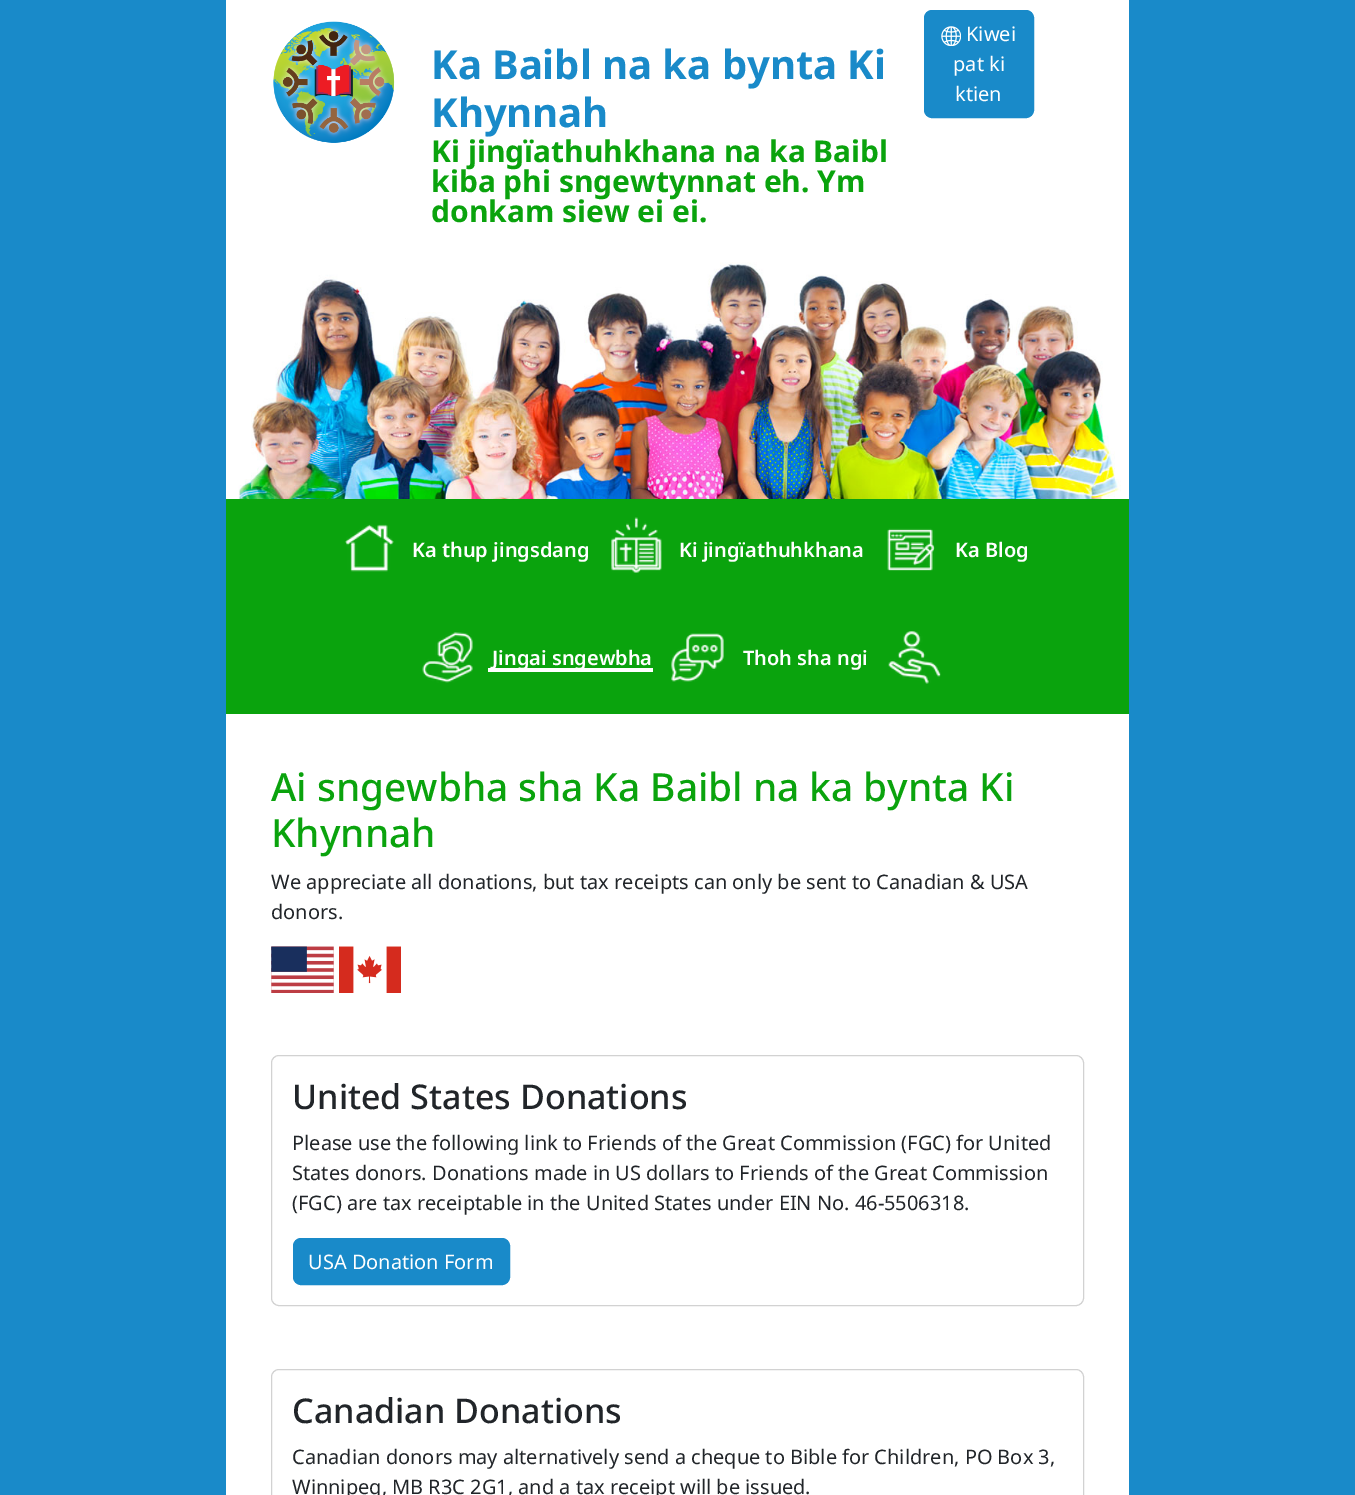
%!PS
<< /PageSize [1355 1495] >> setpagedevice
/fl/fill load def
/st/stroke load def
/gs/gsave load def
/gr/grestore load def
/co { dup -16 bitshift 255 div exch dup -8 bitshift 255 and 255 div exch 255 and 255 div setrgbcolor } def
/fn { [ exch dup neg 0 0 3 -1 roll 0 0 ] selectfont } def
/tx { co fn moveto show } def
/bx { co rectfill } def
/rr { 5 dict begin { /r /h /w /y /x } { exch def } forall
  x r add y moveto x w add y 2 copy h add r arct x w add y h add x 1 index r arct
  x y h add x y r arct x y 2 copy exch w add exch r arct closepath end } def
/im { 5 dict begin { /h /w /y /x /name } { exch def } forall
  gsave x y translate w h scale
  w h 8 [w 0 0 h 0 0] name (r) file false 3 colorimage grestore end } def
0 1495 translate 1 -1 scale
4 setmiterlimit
0 0 1355 1495 16#198AC9 bx
226 0 903 1495 16#FFFFFF bx
(media/1.raw) 273 21 122 122 im
16#198AC9 co
924.5 10.5 109 107 7.5 rr gs fl gr
st
(media/2.raw) 941 26 20 20 im
(media/3.raw) 234 262 887 237 im
226 499 903 215 16#0AA30D bx
(media/4.raw) 345 524 49 48 im
(media/5.raw) 611 517 51 56 im
(media/6.raw) 887 528 48 43 im
(media/7.raw) 422 632 51 51 im
488 668 165 4 16#FFFFFF bx
(media/8.raw) 671 633 53 49 im
(media/9.raw) 888 631 53 53 im
(media/10.raw) 271 946 63 47 im
(media/11.raw) 339 946 62 47 im
16#D2D2D2 co
271.5 1055.5 812 250 7.5 rr st
16#198AC9 co
293.5 1238.5 216 46 7.5 rr gs fl gr
st
16#D2D2D2 co
271.5 1369.5 812 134 7.5 rr st
(Ka Baibl na ka bynta Ki) 431 79 /NotoSans-Bold 40 16#198AC9 tx
(Khynnah) 431 127 /NotoSans-Bold 40 16#198AC9 tx
(Ki jingïathuhkhana na ka Baibl) 431 162 /NotoSans-Bold 30 16#0AA30D tx
(kiba phi sngewtynnat eh. Ym) 431 192 /NotoSans-Bold 30 16#0AA30D tx
(donkam siew ei ei.) 431 222 /NotoSans-Bold 30 16#0AA30D tx
(Kiwei) 966 41 /NotoSans-Regular 20 16#FFFFFF tx
(pat ki) 953 71 /NotoSans-Regular 20 16#FFFFFF tx
(ktien) 955 101 /NotoSans-Regular 20 16#FFFFFF tx
(Ka thup jingsdang) 412 557 /NotoSans-SemiBold 20 16#FFFFFF tx
(Ki jingïathuhkhana) 679 557 /NotoSans-SemiBold 20 16#FFFFFF tx
(Ka Blog) 955 557 /NotoSans-SemiBold 20 16#FFFFFF tx
(Jingai sngewbha) 492 665 /NotoSans-SemiBold 20 16#FFFFFF tx
(Thoh sha ngi) 743 665 /NotoSans-SemiBold 20 16#FFFFFF tx
(Ai sngewbha sha Ka Baibl na ka bynta Ki) 271 801 /NotoSans-Medium 38.75 16#0AA30D tx
(Khynnah) 271 847 /NotoSans-Medium 38.75 16#0AA30D tx
(We appreciate all donations, but tax receipts can only be sent to Canadian & USA) 271 889 /NotoSans-Regular 20 16#212529 tx
(donors.) 271 919 /NotoSans-Regular 20 16#212529 tx
(United States Donations) 292 1109 /NotoSans-Medium 34.1 16#212529 tx
(Please use the following link to Friends of the Great Commission \(FGC\) for United) 292 1150 /NotoSans-Regular 20 16#212529 tx
(States donors. Donations made in US dollars to Friends of the Great Commission) 292 1180 /NotoSans-Regular 20 16#212529 tx
(\(FGC\) are tax receiptable in the United States under EIN No. 46-5506318.) 292 1210 /NotoSans-Regular 20 16#212529 tx
(USA Donation Form) 308 1269 /NotoSans-Regular 20 16#FFFFFF tx
(Canadian Donations) 292 1423 /NotoSans-Medium 34.1 16#212529 tx
(Canadian donors may alternatively send a cheque to Bible for Children, PO Box 3,) 292 1464 /NotoSans-Regular 20 16#212529 tx
(Winnipeg, MB R3C 2G1, and a tax receipt will be issued.) 292 1494 /NotoSans-Regular 20 16#212529 tx
showpage
